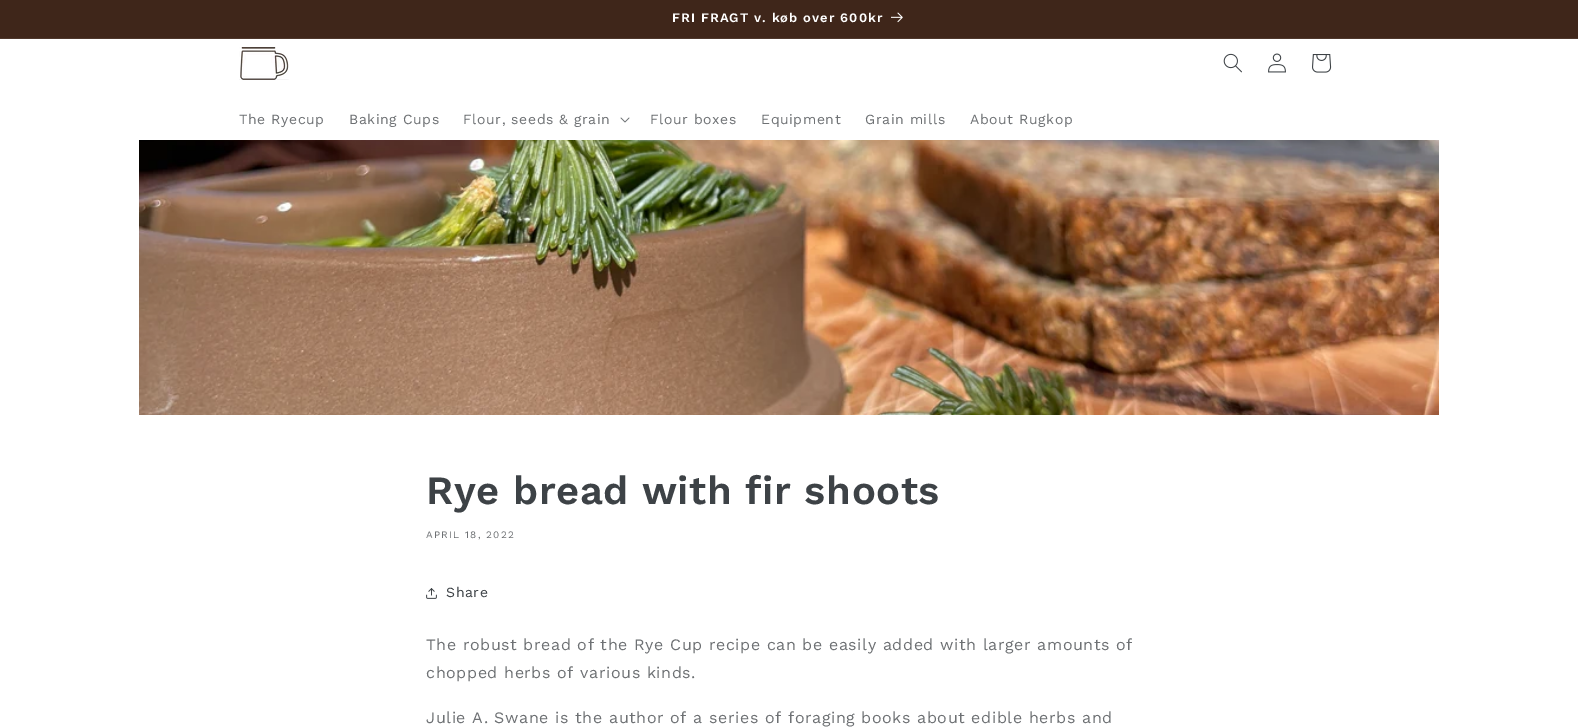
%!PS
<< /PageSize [1578 727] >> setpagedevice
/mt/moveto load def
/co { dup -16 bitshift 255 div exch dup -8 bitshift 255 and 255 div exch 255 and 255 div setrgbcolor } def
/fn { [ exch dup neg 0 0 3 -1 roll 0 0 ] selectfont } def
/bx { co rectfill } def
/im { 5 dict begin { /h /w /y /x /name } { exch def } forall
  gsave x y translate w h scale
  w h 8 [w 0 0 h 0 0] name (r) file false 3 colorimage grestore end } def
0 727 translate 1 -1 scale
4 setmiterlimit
0 0 1578 727 16#FFFFFF bx
0 0 1578 38 16#3F261A bx
0 38 1578 1 16#4E372C bx
(media/1.raw) 891 12 12 11 im
(media/2.raw) 239 47 50 33 im
(media/3.raw) 1223 53 19 20 im
(media/4.raw) 1268 53 18 20 im
(media/5.raw) 1312 54 20 19 im
(media/6.raw) 620 117 10 6 im
(media/7.raw) 139 140 1300 275 im
(media/8.raw) 426 588 11 11 im
/WorkSans-SemiBold 13 fn
16#FFFFFF co
672 22 mt 1 0 (FRI FRAGT v. køb over 600kr) ashow
/WorkSans-Regular 14 fn
16#6E7174 co
239 124 mt .6 0 (The Ryecup) ashow
349 124 mt .6 0 (Baking Cups) ashow
463 124 mt .6 0 (Flour, seeds & grain) ashow
650 124 mt .6 0 (Flour boxes) ashow
761 124 mt .6 0 (Equipment) ashow
865 124 mt .6 0 (Grain mills) ashow
970 124 mt .6 0 (About Rugkop) ashow
/WorkSans-SemiBold 40 fn
16#3D4246 co
426 504 mt .6 0 (Rye bread with fir shoots) ashow
/WorkSans-Regular 10 fn
16#6E7174 co
426 538 mt 1.25 0 (APRIL 18, 2022) ashow
/WorkSans-Regular 14 fn
16#3D4246 co
446 597 mt .6 0 (Share) ashow
/WorkSans-Regular 16 fn
16#6E7174 co
426 650 mt .6 0 (The robust bread of the Rye Cup recipe can be easily added with larger amounts of) ashow
426 678 mt .6 0 (chopped herbs of various kinds.) ashow
426 723 mt .6 0 (Julie A. Swane is the author of a series of foraging books about edible herbs and) ashow
showpage
